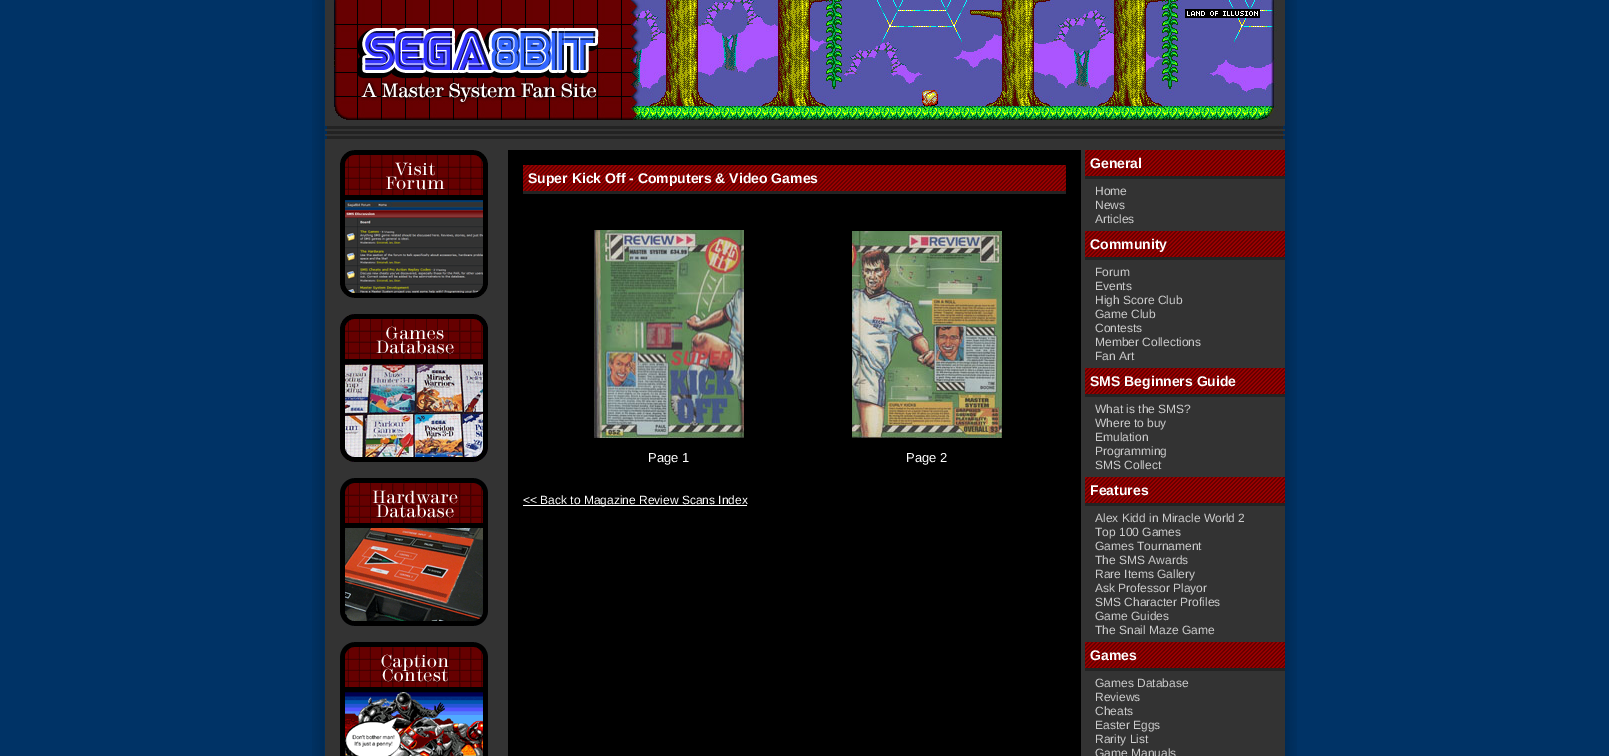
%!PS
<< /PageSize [1609 756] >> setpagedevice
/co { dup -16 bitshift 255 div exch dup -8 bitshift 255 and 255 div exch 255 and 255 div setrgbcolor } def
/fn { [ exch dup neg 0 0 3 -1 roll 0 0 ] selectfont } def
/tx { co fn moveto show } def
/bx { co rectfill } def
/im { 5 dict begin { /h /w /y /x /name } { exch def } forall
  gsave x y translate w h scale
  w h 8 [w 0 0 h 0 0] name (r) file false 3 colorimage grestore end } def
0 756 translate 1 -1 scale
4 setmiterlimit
0 0 1609 756 16#003366 bx
(media/1.raw) 312 0 985 756 im
325 139 297 1 16#333333 bx
(media/2.raw) 325 0 297 139 im
(media/3.raw) 622 0 663 140 im
325 140 183 616 16#333333 bx
(media/4.raw) 340 150 148 148 im
(media/5.raw) 340 314 148 148 im
(media/6.raw) 340 478 148 148 im
(media/7.raw) 340 642 148 114 im
1081 140 204 616 16#333333 bx
508 140 573 10 16#333333 bx
508 150 573 606 16#000000 bx
(media/8.raw) 523 165 543 26 im
523 191 543 3 16#232323 bx
(media/9.raw) 594 230 150 208 im
(media/10.raw) 852 231 150 207 im
523 505 224 1 16#FFFFFF bx
(media/11.raw) 1085 150 200 26 im
1085 176 200 3 16#232323 bx
(media/11.raw) 1085 231 200 26 im
1085 257 200 3 16#232323 bx
(media/11.raw) 1085 368 200 26 im
1085 394 200 3 16#232323 bx
(media/11.raw) 1085 477 200 26 im
1085 503 200 3 16#232323 bx
(media/11.raw) 1085 642 200 26 im
1085 668 200 3 16#232323 bx
(Super Kick Off - Computers & Video Games) 528 183 /LiberationSans-Bold 14 16#FFFFFF tx
(Page 1) 648 462 /LiberationSans-Regular 13 16#FFFFFF tx
(Page 2) 906 462 /LiberationSans-Regular 13 16#FFFFFF tx
(<< Back to Magazine Review Scans Index) 523 504 /LiberationSans-Regular 12 16#FFFFFF tx
(General) 1090 168 /LiberationSans-Bold 14 16#FFFFFF tx
(Home) 1095 195 /LiberationSans-Regular 12 16#CCCCCC tx
(News) 1095 209 /LiberationSans-Regular 12 16#CCCCCC tx
(Articles) 1095 223 /LiberationSans-Regular 12 16#CCCCCC tx
(Community) 1090 249 /LiberationSans-Bold 14 16#FFFFFF tx
(Forum) 1095 276 /LiberationSans-Regular 12 16#CCCCCC tx
(Events) 1095 290 /LiberationSans-Regular 12 16#CCCCCC tx
(High Score Club) 1095 304 /LiberationSans-Regular 12 16#CCCCCC tx
(Game Club) 1095 318 /LiberationSans-Regular 12 16#CCCCCC tx
(Contests) 1095 332 /LiberationSans-Regular 12 16#CCCCCC tx
(Member Collections) 1095 346 /LiberationSans-Regular 12 16#CCCCCC tx
(Fan Art) 1095 360 /LiberationSans-Regular 12 16#CCCCCC tx
(SMS Beginners Guide) 1090 386 /LiberationSans-Bold 14 16#FFFFFF tx
(What is the SMS?) 1095 413 /LiberationSans-Regular 12 16#CCCCCC tx
(Where to buy) 1095 427 /LiberationSans-Regular 12 16#CCCCCC tx
(Emulation) 1095 441 /LiberationSans-Regular 12 16#CCCCCC tx
(Programming) 1095 455 /LiberationSans-Regular 12 16#CCCCCC tx
(SMS Collect) 1095 469 /LiberationSans-Regular 12 16#CCCCCC tx
(Features) 1090 495 /LiberationSans-Bold 14 16#FFFFFF tx
(Alex Kidd in Miracle World 2) 1095 522 /LiberationSans-Regular 12 16#CCCCCC tx
(Top 100 Games) 1095 536 /LiberationSans-Regular 12 16#CCCCCC tx
(Games Tournament) 1095 550 /LiberationSans-Regular 12 16#CCCCCC tx
(The SMS Awards) 1095 564 /LiberationSans-Regular 12 16#CCCCCC tx
(Rare Items Gallery) 1095 578 /LiberationSans-Regular 12 16#CCCCCC tx
(Ask Professor Playor) 1095 592 /LiberationSans-Regular 12 16#CCCCCC tx
(SMS Character Profiles) 1095 606 /LiberationSans-Regular 12 16#CCCCCC tx
(Game Guides) 1095 620 /LiberationSans-Regular 12 16#CCCCCC tx
(The Snail Maze Game) 1095 634 /LiberationSans-Regular 12 16#CCCCCC tx
(Games) 1090 660 /LiberationSans-Bold 14 16#FFFFFF tx
(Games Database) 1095 687 /LiberationSans-Regular 12 16#CCCCCC tx
(Reviews) 1095 701 /LiberationSans-Regular 12 16#CCCCCC tx
(Cheats) 1095 715 /LiberationSans-Regular 12 16#CCCCCC tx
(Easter Eggs) 1095 729 /LiberationSans-Regular 12 16#CCCCCC tx
(Rarity List) 1095 743 /LiberationSans-Regular 12 16#CCCCCC tx
(Game Manuals) 1095 757 /LiberationSans-Regular 12 16#CCCCCC tx
showpage
